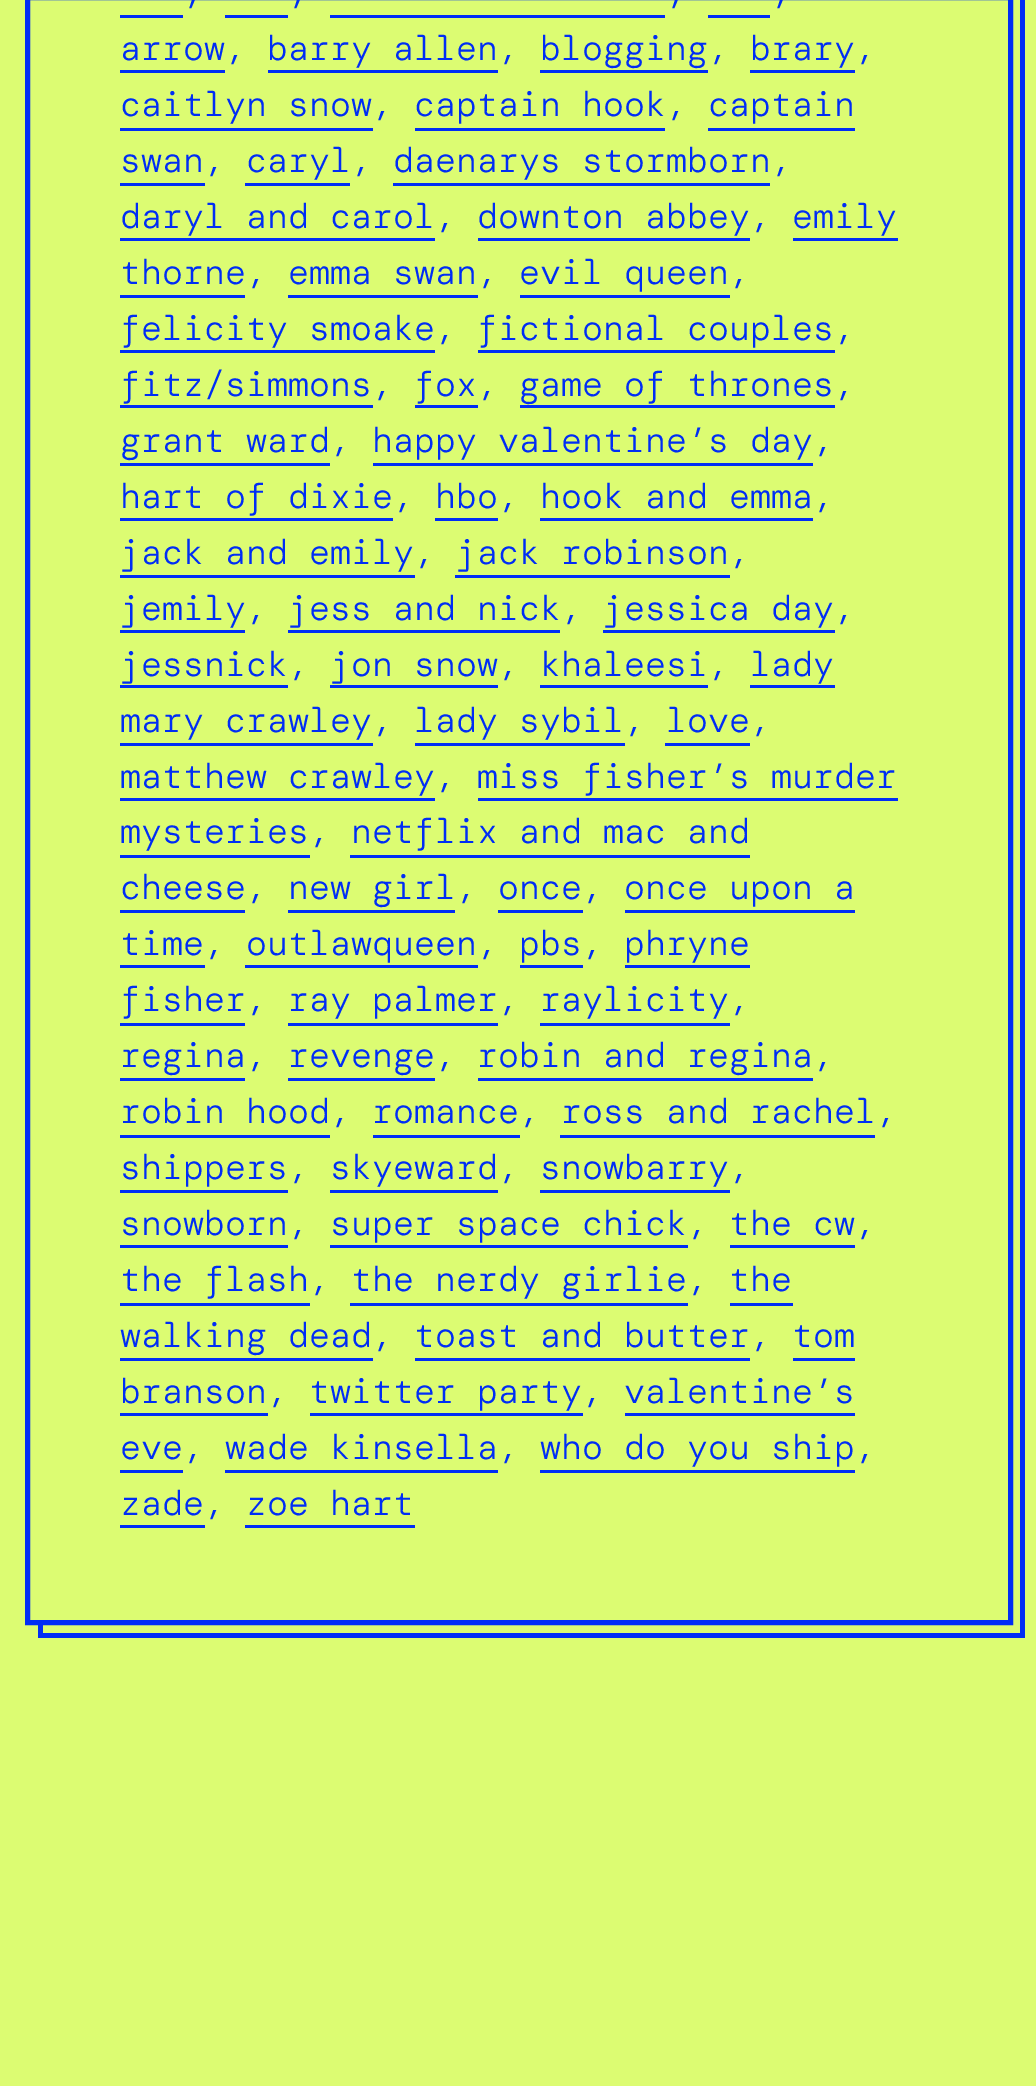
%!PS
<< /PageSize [1036 2086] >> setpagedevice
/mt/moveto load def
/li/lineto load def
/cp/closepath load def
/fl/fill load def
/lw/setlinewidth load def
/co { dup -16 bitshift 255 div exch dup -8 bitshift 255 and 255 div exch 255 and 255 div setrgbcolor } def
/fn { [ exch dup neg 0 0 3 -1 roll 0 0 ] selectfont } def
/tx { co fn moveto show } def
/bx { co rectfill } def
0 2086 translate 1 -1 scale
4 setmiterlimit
0 0 1036 2086 16#DCFC72 bx
16#002DF5 co
38 1625 mt 38 1638 li 1025 1638 li 1025 -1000 li 1012 -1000 li 1012 1625 li cp fl
16#DCFC72 co
43 1625 mt 43 1633 li 1020 1633 li 1020 -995 li 1012 -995 li 1012 1625 li cp fl
16#002DF5 co
5 lw
27.5 -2.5 983 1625 rectstroke
120 15 63 3 16#002DF5 bx
225 15 63 3 16#002DF5 bx
330 15 335 3 16#002DF5 bx
708 15 62 3 16#002DF5 bx
120 70 105 3 16#002DF5 bx
268 70 230 3 16#002DF5 bx
540 70 168 3 16#002DF5 bx
750 70 105 3 16#002DF5 bx
120 128 253 3 16#002DF5 bx
415 128 250 3 16#002DF5 bx
708 128 147 3 16#002DF5 bx
120 183 85 3 16#002DF5 bx
245 183 105 3 16#002DF5 bx
393 183 377 3 16#002DF5 bx
120 238 315 3 16#002DF5 bx
478 238 272 3 16#002DF5 bx
793 238 105 3 16#002DF5 bx
120 295 125 3 16#002DF5 bx
288 295 190 3 16#002DF5 bx
520 295 210 3 16#002DF5 bx
120 350 315 3 16#002DF5 bx
478 350 357 3 16#002DF5 bx
120 405 253 3 16#002DF5 bx
415 405 63 3 16#002DF5 bx
520 405 315 3 16#002DF5 bx
120 463 210 3 16#002DF5 bx
373 463 440 3 16#002DF5 bx
120 518 273 3 16#002DF5 bx
435 518 63 3 16#002DF5 bx
540 518 273 3 16#002DF5 bx
120 575 295 3 16#002DF5 bx
455 575 275 3 16#002DF5 bx
120 630 125 3 16#002DF5 bx
288 630 272 3 16#002DF5 bx
603 630 232 3 16#002DF5 bx
120 685 168 3 16#002DF5 bx
330 685 168 3 16#002DF5 bx
540 685 168 3 16#002DF5 bx
750 685 85 3 16#002DF5 bx
120 743 253 3 16#002DF5 bx
415 743 210 3 16#002DF5 bx
665 743 85 3 16#002DF5 bx
120 798 315 3 16#002DF5 bx
478 798 420 3 16#002DF5 bx
120 855 190 3 16#002DF5 bx
350 855 400 3 16#002DF5 bx
120 910 125 3 16#002DF5 bx
288 910 167 3 16#002DF5 bx
498 910 85 3 16#002DF5 bx
625 910 230 3 16#002DF5 bx
120 965 85 3 16#002DF5 bx
245 965 233 3 16#002DF5 bx
520 965 63 3 16#002DF5 bx
625 965 125 3 16#002DF5 bx
120 1023 125 3 16#002DF5 bx
288 1023 210 3 16#002DF5 bx
540 1023 190 3 16#002DF5 bx
120 1078 125 3 16#002DF5 bx
288 1078 147 3 16#002DF5 bx
478 1078 335 3 16#002DF5 bx
120 1135 210 3 16#002DF5 bx
373 1135 147 3 16#002DF5 bx
560 1135 315 3 16#002DF5 bx
120 1190 168 3 16#002DF5 bx
330 1190 168 3 16#002DF5 bx
540 1190 190 3 16#002DF5 bx
120 1245 168 3 16#002DF5 bx
330 1245 358 3 16#002DF5 bx
730 1245 125 3 16#002DF5 bx
120 1303 190 3 16#002DF5 bx
350 1303 338 3 16#002DF5 bx
730 1303 63 3 16#002DF5 bx
120 1358 253 3 16#002DF5 bx
415 1358 335 3 16#002DF5 bx
793 1358 62 3 16#002DF5 bx
120 1413 148 3 16#002DF5 bx
310 1413 273 3 16#002DF5 bx
625 1413 230 3 16#002DF5 bx
120 1470 63 3 16#002DF5 bx
225 1470 273 3 16#002DF5 bx
540 1470 315 3 16#002DF5 bx
120 1525 85 3 16#002DF5 bx
245 1525 170 3 16#002DF5 bx
(,) 183 4 /DMMono-Light 35 16#002DF5 tx
(,) 288 4 /DMMono-Light 35 16#002DF5 tx
(,) 666 4 /DMMono-Light 35 16#002DF5 tx
(,) 771 4 /DMMono-Light 35 16#002DF5 tx
(arrow, barry allen, blogging, brary,) 120 60 /DMMono-Light 35 16#002DF5 tx
(caitlyn snow, captain hook, captain) 120 116 /DMMono-Light 35 16#002DF5 tx
(swan, caryl, daenarys stormborn,) 120 172 /DMMono-Light 35 16#002DF5 tx
(daryl and carol, downton abbey, emily) 120 228 /DMMono-Light 35 16#002DF5 tx
(thorne, emma swan, evil queen,) 120 284 /DMMono-Light 35 16#002DF5 tx
(felicity smoake, fictional couples,) 120 340 /DMMono-Light 35 16#002DF5 tx
(fitz/simmons, fox, game of thrones,) 120 396 /DMMono-Light 35 16#002DF5 tx
(grant ward, happy valentine’s day,) 120 452 /DMMono-Light 35 16#002DF5 tx
(hart of dixie, hbo, hook and emma,) 120 508 /DMMono-Light 35 16#002DF5 tx
(jack and emily, jack robinson,) 120 564 /DMMono-Light 35 16#002DF5 tx
(jemily, jess and nick, jessica day,) 120 620 /DMMono-Light 35 16#002DF5 tx
(jessnick, jon snow, khaleesi, lady) 120 676 /DMMono-Light 35 16#002DF5 tx
(mary crawley, lady sybil, love,) 120 732 /DMMono-Light 35 16#002DF5 tx
(matthew crawley, miss fisher’s murder) 120 788 /DMMono-Light 35 16#002DF5 tx
(mysteries, netflix and mac and) 120 843 /DMMono-Light 35 16#002DF5 tx
(cheese, new girl, once, once upon a) 120 899 /DMMono-Light 35 16#002DF5 tx
(time, outlawqueen, pbs, phryne) 120 955 /DMMono-Light 35 16#002DF5 tx
(fisher, ray palmer, raylicity,) 120 1011 /DMMono-Light 35 16#002DF5 tx
(regina, revenge, robin and regina,) 120 1067 /DMMono-Light 35 16#002DF5 tx
(robin hood, romance, ross and rachel,) 120 1123 /DMMono-Light 35 16#002DF5 tx
(shippers, skyeward, snowbarry,) 120 1179 /DMMono-Light 35 16#002DF5 tx
(snowborn, super space chick, the cw,) 120 1235 /DMMono-Light 35 16#002DF5 tx
(the flash, the nerdy girlie, the) 120 1291 /DMMono-Light 35 16#002DF5 tx
(walking dead, toast and butter, tom) 120 1347 /DMMono-Light 35 16#002DF5 tx
(branson, twitter party, valentine’s) 120 1403 /DMMono-Light 35 16#002DF5 tx
(eve, wade kinsella, who do you ship,) 120 1459 /DMMono-Light 35 16#002DF5 tx
(zade, zoe hart) 120 1515 /DMMono-Light 35 16#002DF5 tx
showpage
